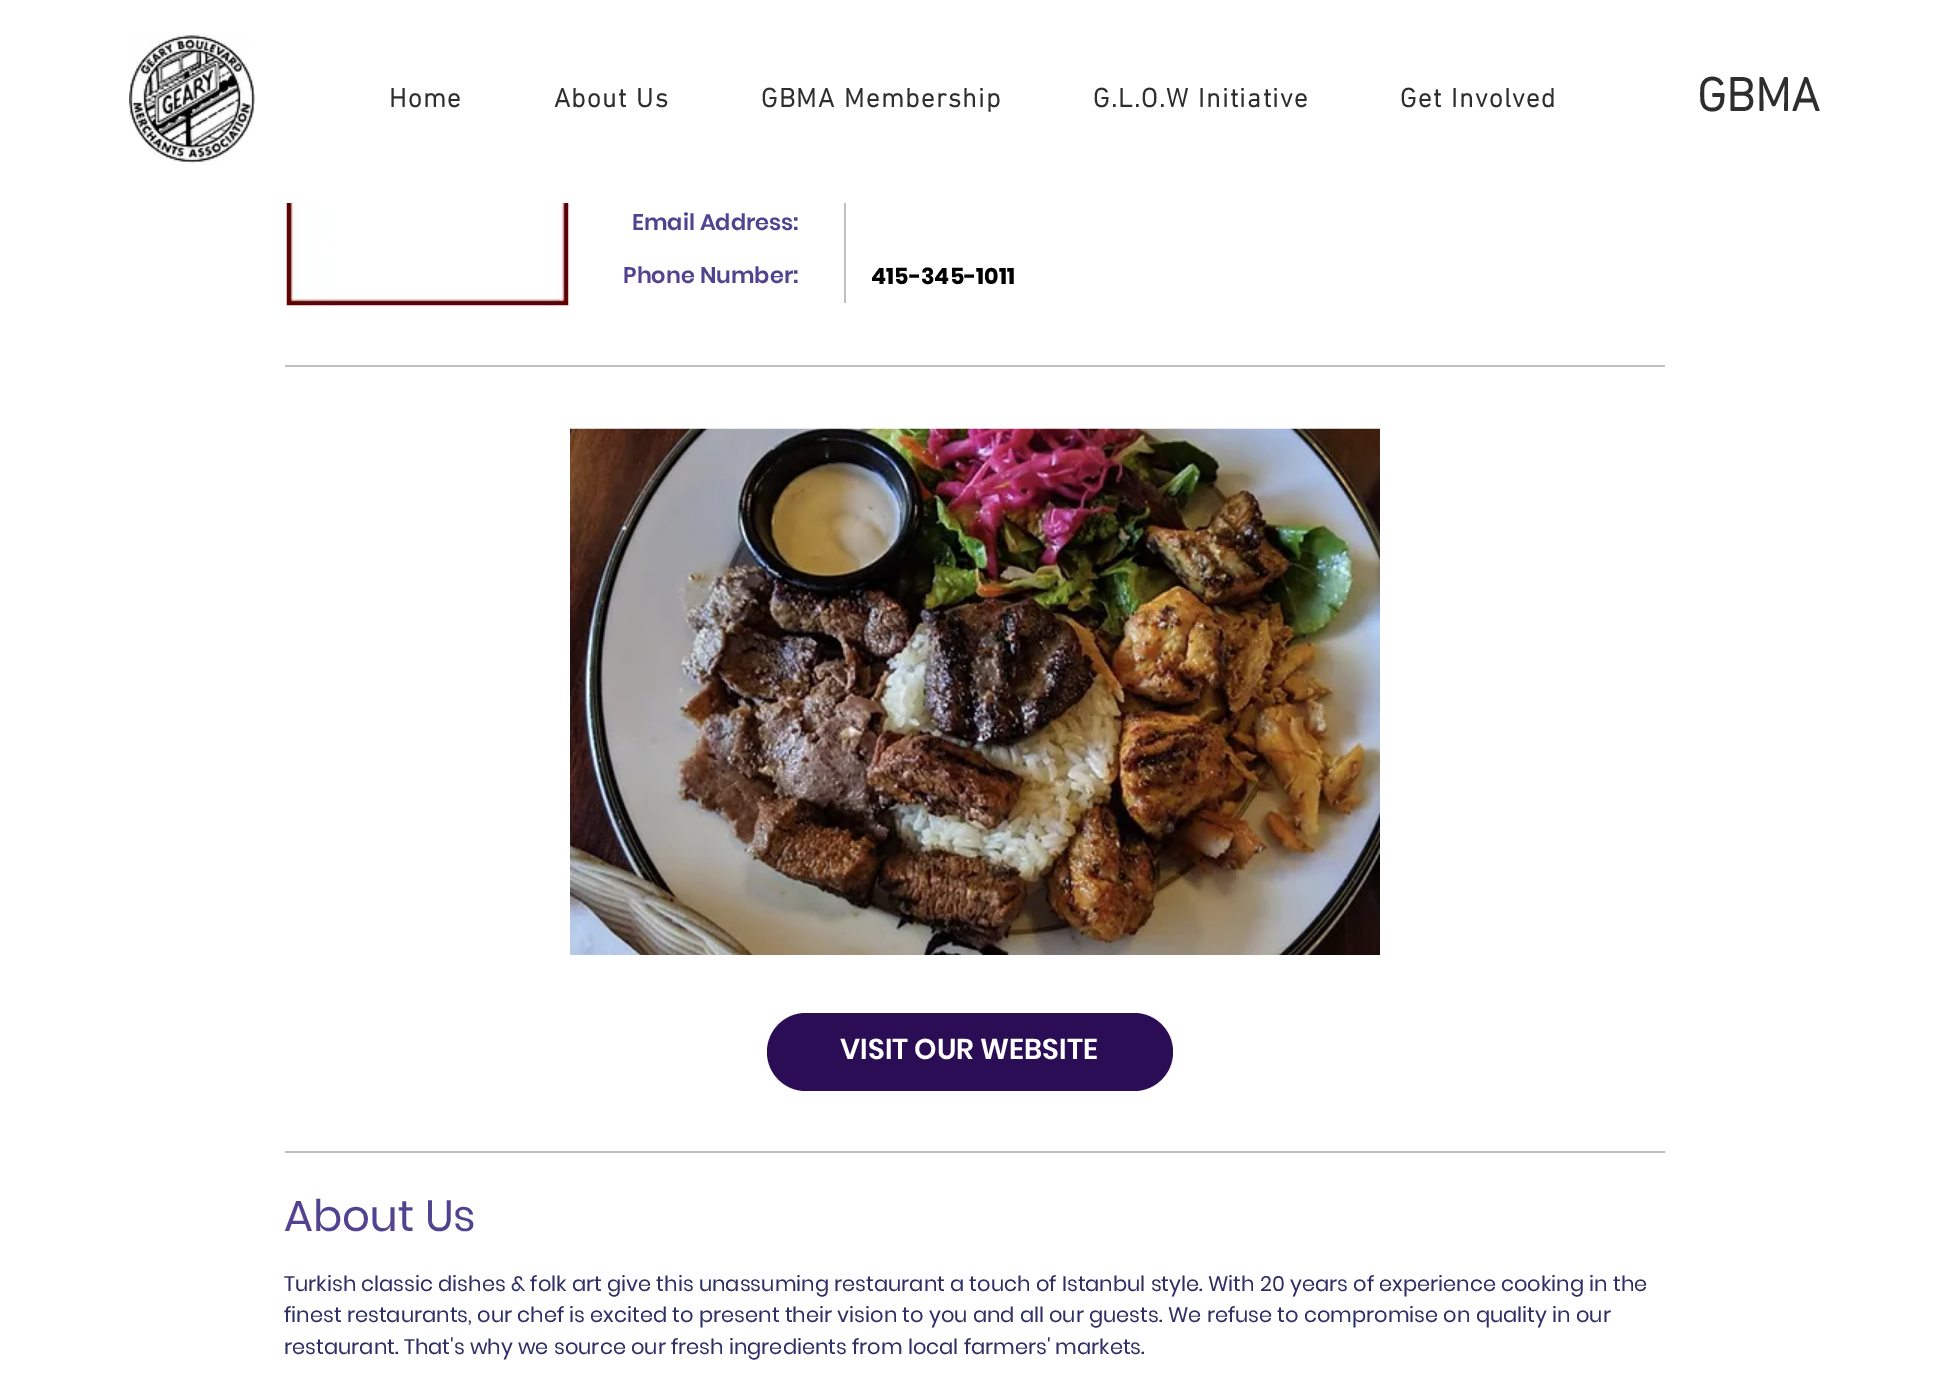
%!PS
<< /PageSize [1948 1373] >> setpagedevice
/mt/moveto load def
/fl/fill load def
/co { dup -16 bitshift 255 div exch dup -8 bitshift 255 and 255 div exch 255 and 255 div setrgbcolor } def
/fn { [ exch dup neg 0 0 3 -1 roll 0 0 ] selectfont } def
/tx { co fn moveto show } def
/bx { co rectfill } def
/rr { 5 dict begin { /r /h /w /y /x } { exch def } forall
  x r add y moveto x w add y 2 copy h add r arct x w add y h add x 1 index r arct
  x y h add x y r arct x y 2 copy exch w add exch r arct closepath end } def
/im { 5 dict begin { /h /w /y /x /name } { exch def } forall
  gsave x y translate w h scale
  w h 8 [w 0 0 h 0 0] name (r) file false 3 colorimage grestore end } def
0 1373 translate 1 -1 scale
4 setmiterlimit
0 0 1948 1373 16#FFFFFF bx
(media/1.raw) 129 34 126 131 im
(media/2.raw) 286 203 283 103 im
844 203 2 100 16#C1C0C0 bx
285 365 1380 2 16#C1C0C0 bx
(media/3.raw) 570 428 810 527 im
16#2A0D54 co
767 1013 406 78 39 rr fl
285 1151 1380 2 16#C1C0C0 bx
/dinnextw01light-Bold 27 fn
16#2F2E2E co
389 107 mt 1.4 0 (Home) ashow
554 107 mt 1.4 0 (About Us) ashow
761 107 mt 1.4 0 (GBMA Membership) ashow
1093 107 mt 1.4 0 (G.L.O.W Initiative) ashow
1400 107 mt 1.4 0 (Get Involved) ashow
(GBMA) 1697 111 /dinnextw01light-Bold 48 16#2F2E2E tx
(Email Address:) 632 230 /Poppins-SemiBold 22.5 16#524391 tx
(Phone Number:) 623 283 /Poppins-SemiBold 22.5 16#524391 tx
(415-345-1011) 871 284 /Poppins-Bold 22.5 16#000000 tx
(VISIT OUR WEBSITE) 840 1059 /Poppins-SemiBold 28.5 16#FFFFFF tx
(About Us) 284 1231 /Poppins-Regular 43.5 16#524391 tx
(Turkish classic dishes & folk art give this unassuming restaurant a touch of Istanbul style. With 20 years of experience cooking in the) 284 1291 /Poppins-Regular 21 16#2D2F65 tx
(finest restaurants, our chef is excited to present their vision to you and all our guests. We refuse to compromise on quality in our) 284 1322 /Poppins-Regular 21 16#2D2F65 tx
(restaurant. That's why we source our fresh ingredients from local farmers' markets.) 284 1354 /Poppins-Regular 21 16#2D2F65 tx
showpage
